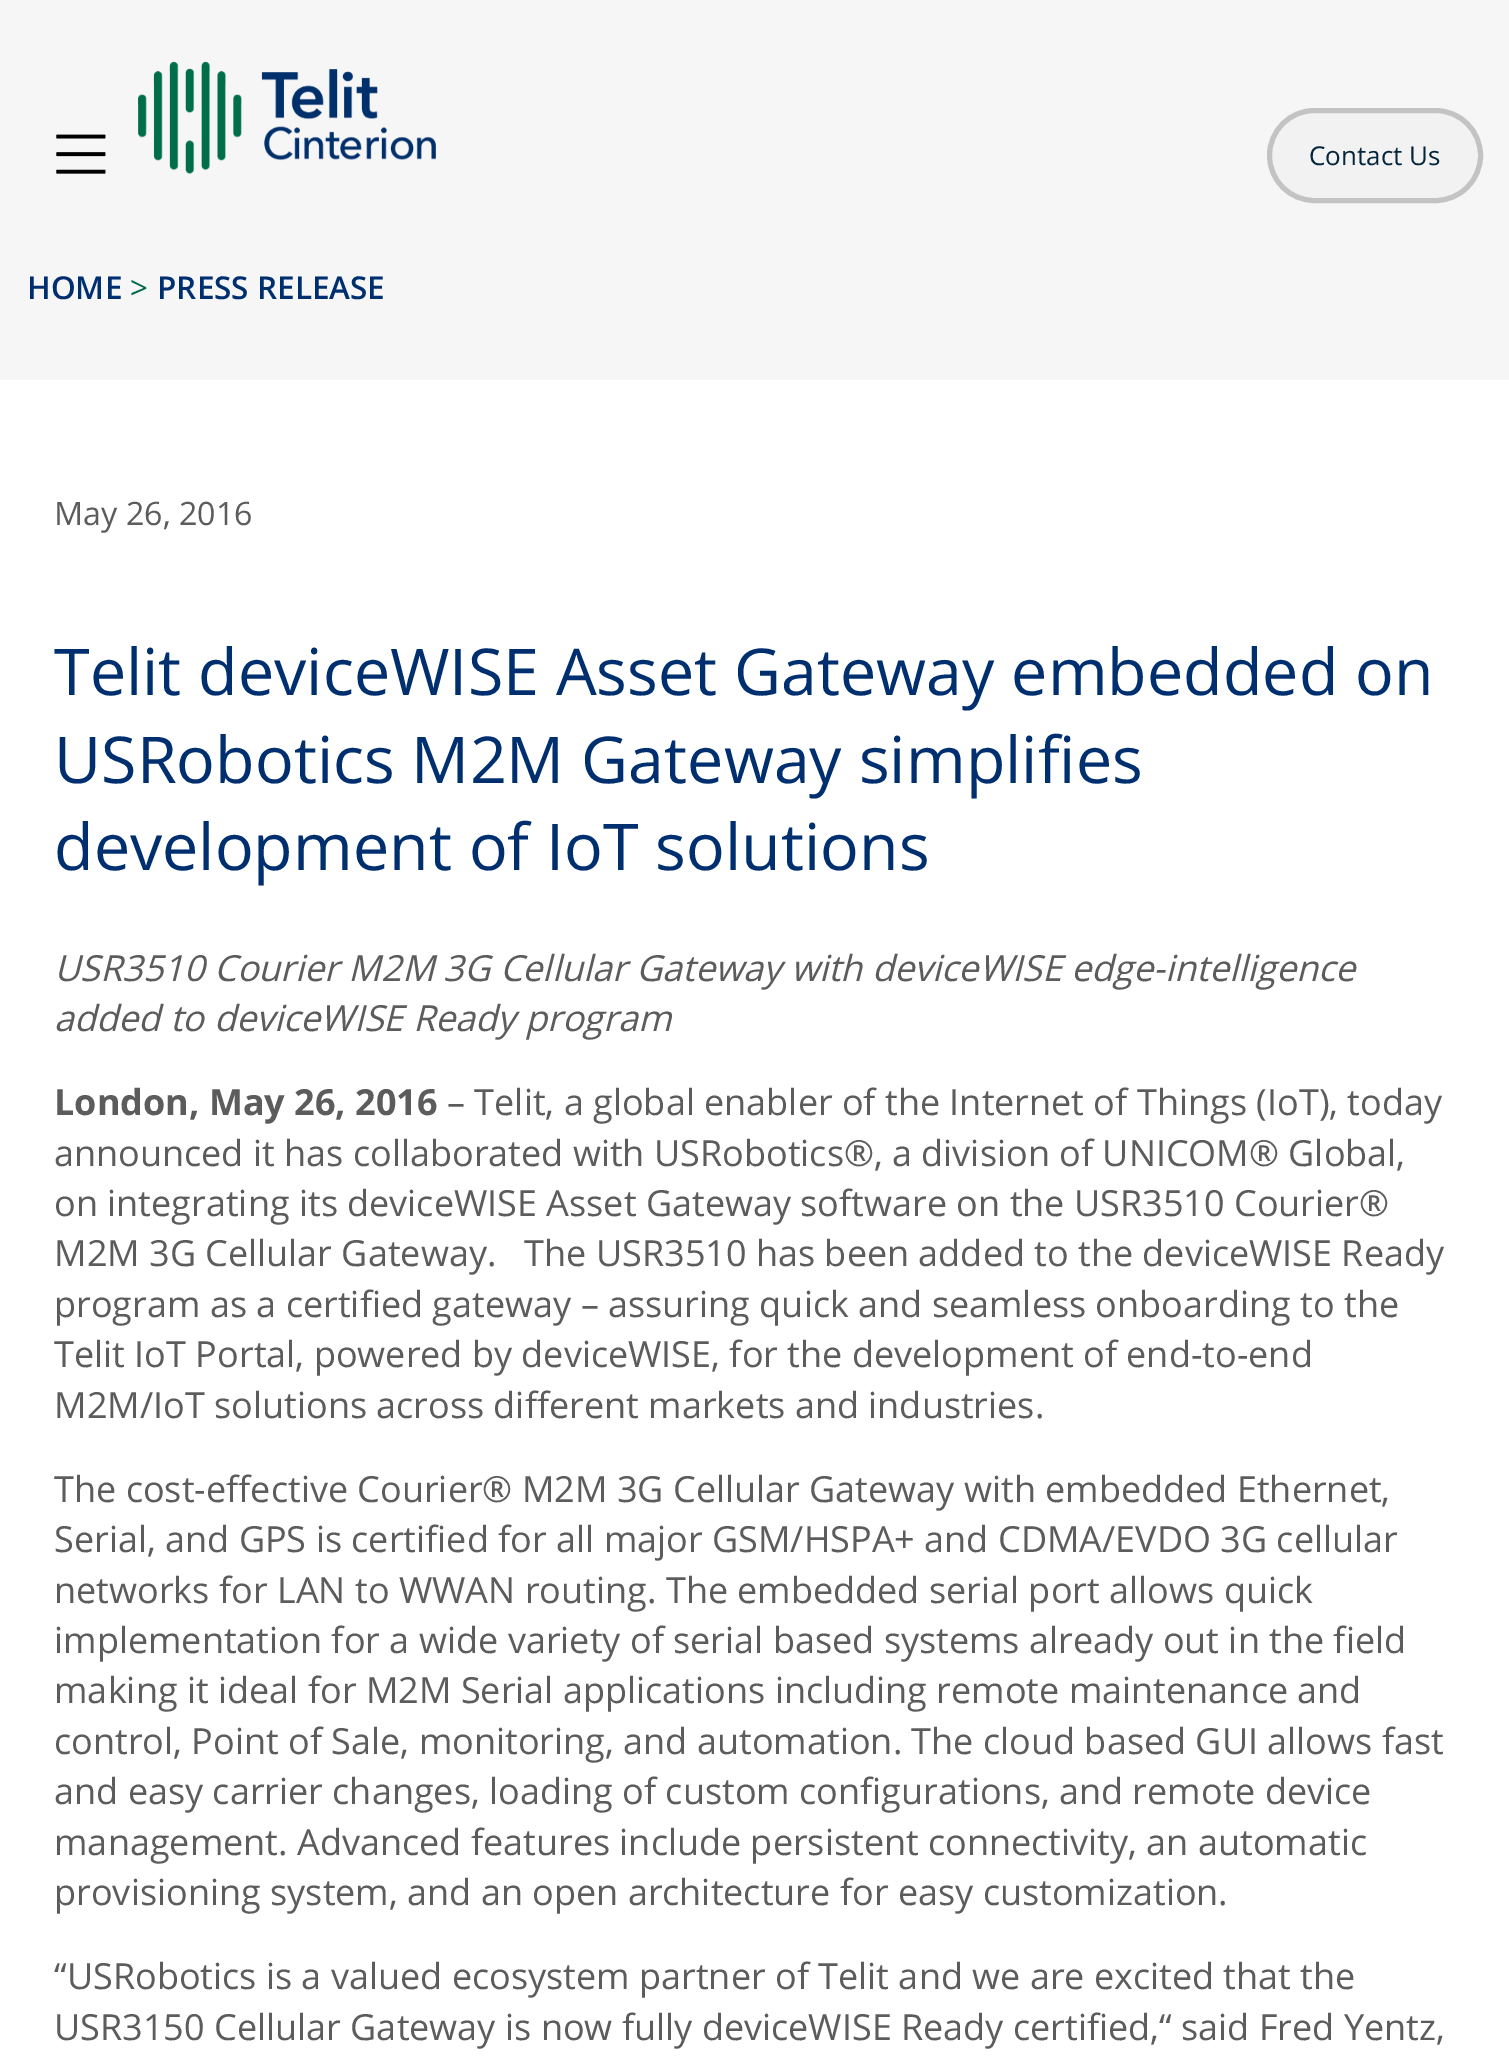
%!PS
<< /PageSize [1509 2059] >> setpagedevice
/fl/fill load def
/st/stroke load def
/gs/gsave load def
/gr/grestore load def
/lw/setlinewidth load def
/co { dup -16 bitshift 255 div exch dup -8 bitshift 255 and 255 div exch 255 and 255 div setrgbcolor } def
/fn { [ exch dup neg 0 0 3 -1 roll 0 0 ] selectfont } def
/tx { co fn moveto show } def
/bx { co rectfill } def
/rr { 5 dict begin { /r /h /w /y /x } { exch def } forall
  x r add y moveto x w add y 2 copy h add r arct x w add y h add x 1 index r arct
  x y h add x y r arct x y 2 copy exch w add exch r arct closepath end } def
/im { 5 dict begin { /h /w /y /x /name } { exch def } forall
  gsave x y translate w h scale
  w h 8 [w 0 0 h 0 0] name (r) file false 3 colorimage grestore end } def
0 2059 translate 1 -1 scale
4 setmiterlimit
0 0 1509 2059 16#FFFFFF bx
0 0 1509 380 16#F6F6F6 bx
(media/1.raw) 56 134 50 40 im
(media/2.raw) 138 61 298 114 im
16#F2F2F2 co
1269.5 110.5 211 90 45 rr gs fl gr
16#C3C3C3 co
5 lw
st
(Contact Us) 1309 165 /OpenSans-Regular 26 16#04253C tx
(HOME) 27 299 /OpenSans-SemiBold 31.5 16#002F70 tx
(>) 130 299 /OpenSans-Regular 31.5 16#00694B tx
(PRESS RELEASE) 157 299 /OpenSans-SemiBold 31.5 16#002F70 tx
(May 26, 2016) 54 525 /OpenSans-Regular 32.25 16#5C5C5C tx
(Telit deviceWISE Asset Gateway embedded on) 54 695 /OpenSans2-Regular 64.6 16#002F70 tx
(USRobotics M2M Gateway simplifies) 54 783 /OpenSans2-Regular 64.6 16#002F70 tx
(development of IoT solutions) 54 870 /OpenSans2-Regular 64.6 16#002F70 tx
(USR3510 Courier M2M 3G Cellular Gateway with deviceWISE edge-intelligence) 54 981 /OpenSans-Italic 36 16#5C5C5C tx
(added to deviceWISE Ready program) 54 1031 /OpenSans-Italic 36 16#5C5C5C tx
(London, May 26, 2016) 54 1115 /OpenSans-Bold 36 16#5C5C5C tx
(– Telit, a global enabler of the Internet of Things \(IoT\), today) 447 1115 /OpenSans-Regular 36 16#5C5C5C tx
(announced it has collaborated with USRobotics®, a division of UNICOM® Global,) 54 1166 /OpenSans-Regular 36 16#5C5C5C tx
(on integrating its deviceWISE Asset Gateway software on the USR3510 Courier®) 54 1216 /OpenSans-Regular 36 16#5C5C5C tx
(M2M 3G Cellular Gateway.   The USR3510 has been added to the deviceWISE Ready) 54 1266 /OpenSans-Regular 36 16#5C5C5C tx
(program as a certified gateway – assuring quick and seamless onboarding to the) 54 1317 /OpenSans-Regular 36 16#5C5C5C tx
(Telit IoT Portal, powered by deviceWISE, for the development of end-to-end) 54 1367 /OpenSans-Regular 36 16#5C5C5C tx
(M2M/IoT solutions across different markets and industries.) 54 1418 /OpenSans-Regular 36 16#5C5C5C tx
(The cost-effective Courier® M2M 3G Cellular Gateway with embedded Ethernet,) 54 1502 /OpenSans-Regular 36 16#5C5C5C tx
(Serial, and GPS is certified for all major GSM/HSPA+ and CDMA/EVDO 3G cellular) 54 1552 /OpenSans-Regular 36 16#5C5C5C tx
(networks for LAN to WWAN routing. The embedded serial port allows quick) 54 1603 /OpenSans-Regular 36 16#5C5C5C tx
(implementation for a wide variety of serial based systems already out in the field) 54 1653 /OpenSans-Regular 36 16#5C5C5C tx
(making it ideal for M2M Serial applications including remote maintenance and) 54 1703 /OpenSans-Regular 36 16#5C5C5C tx
(control, Point of Sale, monitoring, and automation. The cloud based GUI allows fast) 54 1754 /OpenSans-Regular 36 16#5C5C5C tx
(and easy carrier changes, loading of custom configurations, and remote device) 54 1804 /OpenSans-Regular 36 16#5C5C5C tx
(management. Advanced features include persistent connectivity, an automatic) 54 1855 /OpenSans-Regular 36 16#5C5C5C tx
(provisioning system, and an open architecture for easy customization.) 54 1905 /OpenSans-Regular 36 16#5C5C5C tx
(“USRobotics is a valued ecosystem partner of Telit and we are excited that the) 54 1989 /OpenSans-Regular 36 16#5C5C5C tx
(USR3150 Cellular Gateway is now fully deviceWISE Ready certified,“ said Fred Yentz,) 54 2040 /OpenSans-Regular 36 16#5C5C5C tx
showpage
